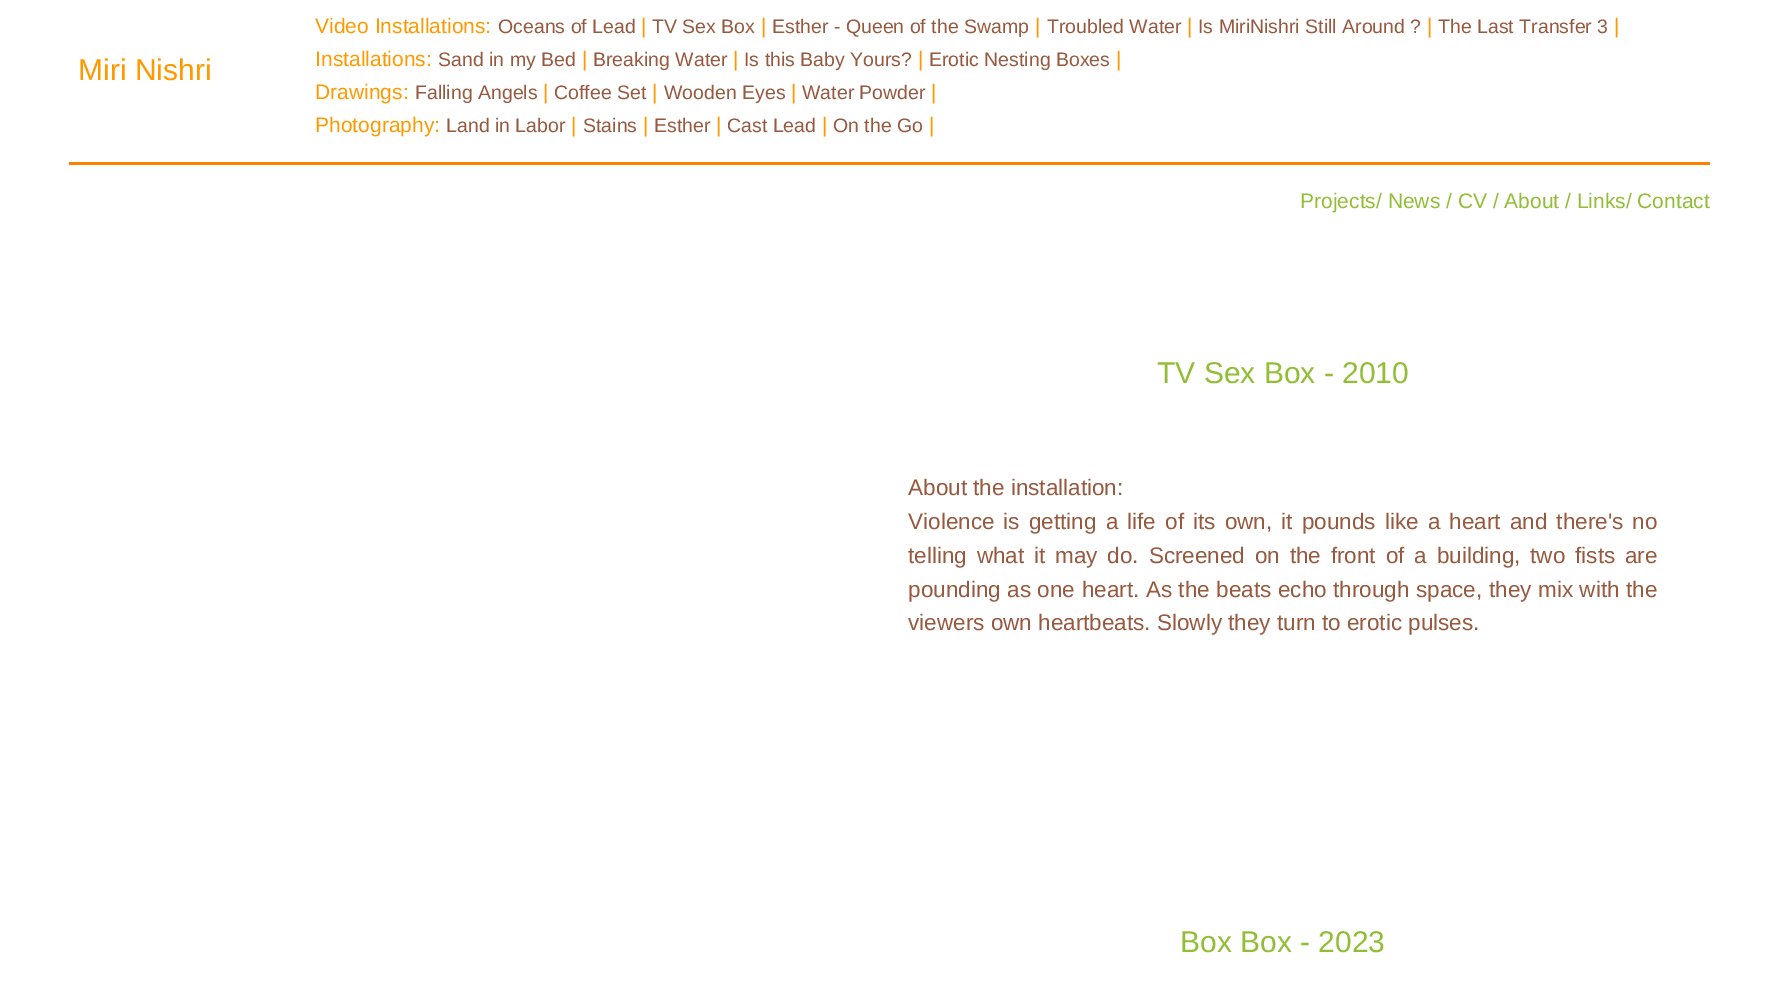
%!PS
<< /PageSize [1779 982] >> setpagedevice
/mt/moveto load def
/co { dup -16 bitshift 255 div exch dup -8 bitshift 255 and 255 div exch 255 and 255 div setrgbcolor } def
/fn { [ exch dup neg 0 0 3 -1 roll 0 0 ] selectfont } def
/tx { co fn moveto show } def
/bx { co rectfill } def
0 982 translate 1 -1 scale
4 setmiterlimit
0 0 1779 982 16#FFFFFF bx
69 162 1641 3 16#FF8000 bx
(Miri Nishri) 78 80 /LiberationSans-Regular 30 16#FF9900 tx
(Video Installations:) 315 33 /LiberationSans-Regular 21 16#FF9900 tx
(Oceans of Lead) 498 33 /LiberationSans-Regular 19.5 16#975A40 tx
(|) 641 33 /LiberationSans-Regular 21 16#FF9900 tx
(TV Sex Box) 652 33 /LiberationSans-Regular 19.5 16#975A40 tx
(|) 761 33 /LiberationSans-Regular 21 16#FF9900 tx
(Esther - Queen of the Swamp) 772 33 /LiberationSans-Regular 19.5 16#975A40 tx
(|) 1035 33 /LiberationSans-Regular 21 16#FF9900 tx
(Troubled Water) 1047 33 /LiberationSans-Regular 19.5 16#975A40 tx
(|) 1187 33 /LiberationSans-Regular 21 16#FF9900 tx
(Is MiriNishri Still Around ?) 1198 33 /LiberationSans-Regular 19.5 16#975A40 tx
(|) 1427 33 /LiberationSans-Regular 21 16#FF9900 tx
(The Last Transfer 3) 1438 33 /LiberationSans-Regular 19.5 16#975A40 tx
(|) 1614 33 /LiberationSans-Regular 21 16#FF9900 tx
(Installations:) 315 66 /LiberationSans-Regular 21 16#FF9900 tx
(Sand in my Bed) 438 66 /LiberationSans-Regular 19.5 16#975A40 tx
(|) 582 66 /LiberationSans-Regular 21 16#FF9900 tx
(Breaking Water) 593 66 /LiberationSans-Regular 19.5 16#975A40 tx
(|) 733 66 /LiberationSans-Regular 21 16#FF9900 tx
(Is this Baby Yours?) 744 66 /LiberationSans-Regular 19.5 16#975A40 tx
(|) 918 66 /LiberationSans-Regular 21 16#FF9900 tx
(Erotic Nesting Boxes) 929 66 /LiberationSans-Regular 19.5 16#975A40 tx
(|) 1116 66 /LiberationSans-Regular 21 16#FF9900 tx
(Drawings:) 315 99 /LiberationSans-Regular 21 16#FF9900 tx
(Falling Angels) 415 99 /LiberationSans-Regular 19.5 16#975A40 tx
(|) 543 99 /LiberationSans-Regular 21 16#FF9900 tx
(Coffee Set) 554 99 /LiberationSans-Regular 19.5 16#975A40 tx
(|) 652 99 /LiberationSans-Regular 21 16#FF9900 tx
(Wooden Eyes) 664 99 /LiberationSans-Regular 19.5 16#975A40 tx
(|) 791 99 /LiberationSans-Regular 21 16#FF9900 tx
(Water Powder) 802 99 /LiberationSans-Regular 19.5 16#975A40 tx
(|) 931 99 /LiberationSans-Regular 21 16#FF9900 tx
(Photography:) 315 132 /LiberationSans-Regular 21 16#FF9900 tx
(Land in Labor) 446 132 /LiberationSans-Regular 19.5 16#975A40 tx
(|) 571 132 /LiberationSans-Regular 21 16#FF9900 tx
(Stains) 583 132 /LiberationSans-Regular 19.5 16#975A40 tx
(|) 643 132 /LiberationSans-Regular 21 16#FF9900 tx
(Esther) 654 132 /LiberationSans-Regular 19.5 16#975A40 tx
(|) 716 132 /LiberationSans-Regular 21 16#FF9900 tx
(Cast Lead) 727 132 /LiberationSans-Regular 19.5 16#975A40 tx
(|) 822 132 /LiberationSans-Regular 21 16#FF9900 tx
(On the Go) 833 132 /LiberationSans-Regular 19.5 16#975A40 tx
(|) 929 132 /LiberationSans-Regular 21 16#FF9900 tx
(Projects/ News / CV / About / Links/ Contact) 1300 208 /LiberationSans-Regular 21 16#92BE36 tx
(TV Sex Box - 2010) 1157 383 /LiberationSans-Regular 30 16#92BE36 tx
(About the installation:) 908 495 /LiberationSans-Regular 22.5 16#975A40 tx
908 529 mt 2.9 0 32 (Violence is getting a life of its own, it pounds like a heart and there's no) widthshow
908 563 mt 3.6 0 32 (telling what it may do. Screened on the front of a building, two fists are) widthshow
908 597 mt .3 0 32 (pounding as one heart. As the beats echo through space, they mix with the) widthshow
(viewers own heartbeats. Slowly they turn to erotic pulses.) 908 630 /LiberationSans-Regular 22.5 16#975A40 tx
(Box Box - 2023) 1180 952 /LiberationSans-Regular 30 16#92BE36 tx
showpage
